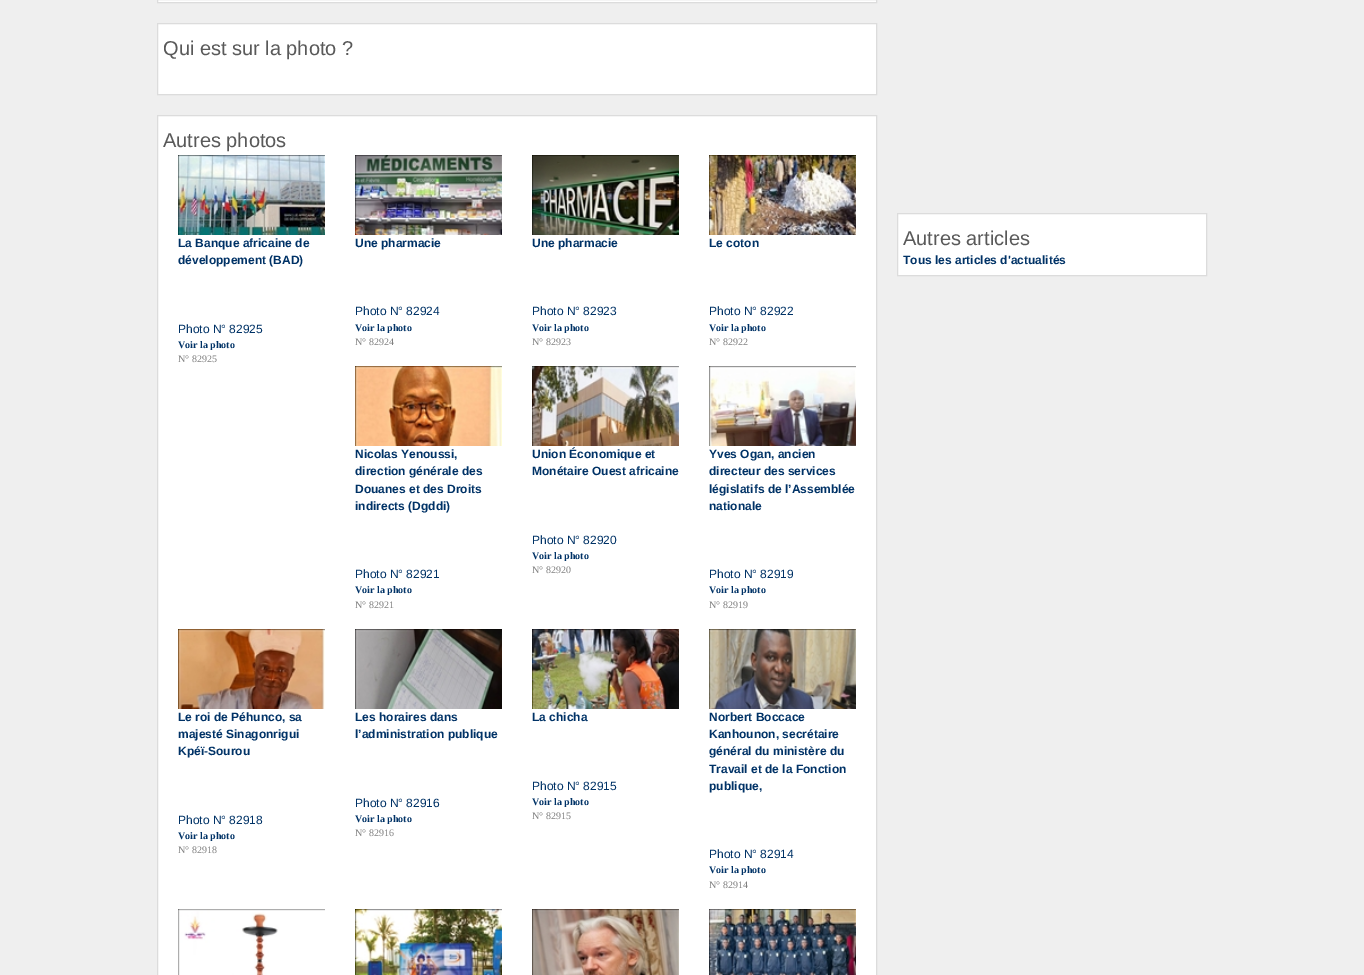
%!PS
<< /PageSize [1364 975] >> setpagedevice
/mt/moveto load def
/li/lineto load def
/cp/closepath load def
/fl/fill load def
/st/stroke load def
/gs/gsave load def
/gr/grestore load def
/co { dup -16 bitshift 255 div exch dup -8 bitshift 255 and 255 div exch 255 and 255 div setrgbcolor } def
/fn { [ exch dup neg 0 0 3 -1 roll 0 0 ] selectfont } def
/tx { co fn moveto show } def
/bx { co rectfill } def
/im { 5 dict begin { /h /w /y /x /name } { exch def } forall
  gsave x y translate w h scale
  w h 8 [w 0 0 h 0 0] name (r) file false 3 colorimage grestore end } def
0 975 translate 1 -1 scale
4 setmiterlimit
0 0 1364 975 16#EFEFEF bx
16#FFFFFF co
157.5 -.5 mt 876.5 -.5 li 876.5 2.5 li 157.5 2.5 li cp gs fl gr
16#DCDCDC co
st
16#FFFFFF co
157.5 23.5 mt 876.5 23.5 li 876.5 94.5 li 157.5 94.5 li cp gs fl gr
16#DCDCDC co
st
16#FFFFFF co
157.5 115.5 mt 876.5 115.5 li 876.5 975.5 li 157.5 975.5 li cp gs fl gr
16#DCDCDC co
st
(media/1.raw) 178 155 147 80 im
(media/2.raw) 355 155 147 80 im
(media/3.raw) 532 155 147 80 im
(media/4.raw) 709 155 147 80 im
(media/5.raw) 355 366 147 80 im
(media/6.raw) 532 366 147 80 im
(media/7.raw) 709 366 147 80 im
(media/8.raw) 178 629 147 80 im
(media/9.raw) 355 629 147 80 im
(media/10.raw) 532 629 147 80 im
(media/11.raw) 709 629 147 80 im
(media/12.raw) 178 909 147 66 im
(media/13.raw) 355 909 147 66 im
(media/14.raw) 532 909 147 66 im
(media/15.raw) 709 909 147 66 im
16#FFFFFF co
897.5 213.5 mt 1206.5 213.5 li 1206.5 275.5 li 897.5 275.5 li cp gs fl gr
16#DCDCDC co
st
(Qui est sur la photo ?) 163 55 /LiberationSans-Regular 20 16#595959 tx
(Autres photos) 163 147 /LiberationSans-Regular 20 16#595959 tx
(La Banque africaine de) 178 247 /LiberationSans-Bold 12 16#003266 tx
(développement \(BAD\)) 178 264 /LiberationSans-Bold 12 16#003266 tx
(Photo N° 82925) 178 333 /LiberationSans-Regular 12 16#003266 tx
(Voir la photo) 178 348 /LiberationSerif-Bold 10 16#003266 tx
(N° 82925) 178 362 /LiberationSerif-Regular 10 16#808080 tx
(Une pharmacie) 355 247 /LiberationSans-Bold 12 16#003266 tx
(Photo N° 82924) 355 315 /LiberationSans-Regular 12 16#003266 tx
(Voir la photo) 355 331 /LiberationSerif-Bold 10 16#003266 tx
(N° 82924) 355 345 /LiberationSerif-Regular 10 16#808080 tx
(Une pharmacie) 532 247 /LiberationSans-Bold 12 16#003266 tx
(Photo N° 82923) 532 315 /LiberationSans-Regular 12 16#003266 tx
(Voir la photo) 532 331 /LiberationSerif-Bold 10 16#003266 tx
(N° 82923) 532 345 /LiberationSerif-Regular 10 16#808080 tx
(Le coton) 709 247 /LiberationSans-Bold 12 16#003266 tx
(Photo N° 82922) 709 315 /LiberationSans-Regular 12 16#003266 tx
(Voir la photo) 709 331 /LiberationSerif-Bold 10 16#003266 tx
(N° 82922) 709 345 /LiberationSerif-Regular 10 16#808080 tx
(Nicolas Yenoussi,) 355 458 /LiberationSans-Bold 12 16#003266 tx
(direction générale des) 355 475 /LiberationSans-Bold 12 16#003266 tx
(Douanes et des Droits) 355 493 /LiberationSans-Bold 12 16#003266 tx
(indirects \(Dgddi\)) 355 510 /LiberationSans-Bold 12 16#003266 tx
(Photo N° 82921) 355 578 /LiberationSans-Regular 12 16#003266 tx
(Voir la photo) 355 593 /LiberationSerif-Bold 10 16#003266 tx
(N° 82921) 355 608 /LiberationSerif-Regular 10 16#808080 tx
(Union Économique et) 532 458 /LiberationSans-Bold 12 16#003266 tx
(Monétaire Ouest africaine) 532 475 /LiberationSans-Bold 12 16#003266 tx
(Photo N° 82920) 532 544 /LiberationSans-Regular 12 16#003266 tx
(Voir la photo) 532 559 /LiberationSerif-Bold 10 16#003266 tx
(N° 82920) 532 573 /LiberationSerif-Regular 10 16#808080 tx
(Yves Ogan, ancien) 709 458 /LiberationSans-Bold 12 16#003266 tx
(directeur des services) 709 475 /LiberationSans-Bold 12 16#003266 tx
(législatifs de l’Assemblée) 709 493 /LiberationSans-Bold 12 16#003266 tx
(nationale) 709 510 /LiberationSans-Bold 12 16#003266 tx
(Photo N° 82919) 709 578 /LiberationSans-Regular 12 16#003266 tx
(Voir la photo) 709 593 /LiberationSerif-Bold 10 16#003266 tx
(N° 82919) 709 608 /LiberationSerif-Regular 10 16#808080 tx
(Le roi de Péhunco, sa) 178 721 /LiberationSans-Bold 12 16#003266 tx
(majesté Sinagonrigui) 178 738 /LiberationSans-Bold 12 16#003266 tx
(Kpéï-Sourou) 178 755 /LiberationSans-Bold 12 16#003266 tx
(Photo N° 82918) 178 824 /LiberationSans-Regular 12 16#003266 tx
(Voir la photo) 178 839 /LiberationSerif-Bold 10 16#003266 tx
(N° 82918) 178 853 /LiberationSerif-Regular 10 16#808080 tx
(Les horaires dans) 355 721 /LiberationSans-Bold 12 16#003266 tx
(l’administration publique) 355 738 /LiberationSans-Bold 12 16#003266 tx
(Photo N° 82916) 355 807 /LiberationSans-Regular 12 16#003266 tx
(Voir la photo) 355 822 /LiberationSerif-Bold 10 16#003266 tx
(N° 82916) 355 836 /LiberationSerif-Regular 10 16#808080 tx
(La chicha) 532 721 /LiberationSans-Bold 12 16#003266 tx
(Photo N° 82915) 532 790 /LiberationSans-Regular 12 16#003266 tx
(Voir la photo) 532 805 /LiberationSerif-Bold 10 16#003266 tx
(N° 82915) 532 819 /LiberationSerif-Regular 10 16#808080 tx
(Norbert Boccace) 709 721 /LiberationSans-Bold 12 16#003266 tx
(Kanhounon, secrétaire) 709 738 /LiberationSans-Bold 12 16#003266 tx
(général du ministère du) 709 755 /LiberationSans-Bold 12 16#003266 tx
(Travail et de la Fonction) 709 773 /LiberationSans-Bold 12 16#003266 tx
(publique,) 709 790 /LiberationSans-Bold 12 16#003266 tx
(Photo N° 82914) 709 858 /LiberationSans-Regular 12 16#003266 tx
(Voir la photo) 709 873 /LiberationSerif-Bold 10 16#003266 tx
(N° 82914) 709 888 /LiberationSerif-Regular 10 16#808080 tx
(Autres articles) 903 245 /LiberationSans-Regular 20 16#595959 tx
(Tous les articles d'actualités) 903 264 /LiberationSans-Bold 12 16#003266 tx
showpage
